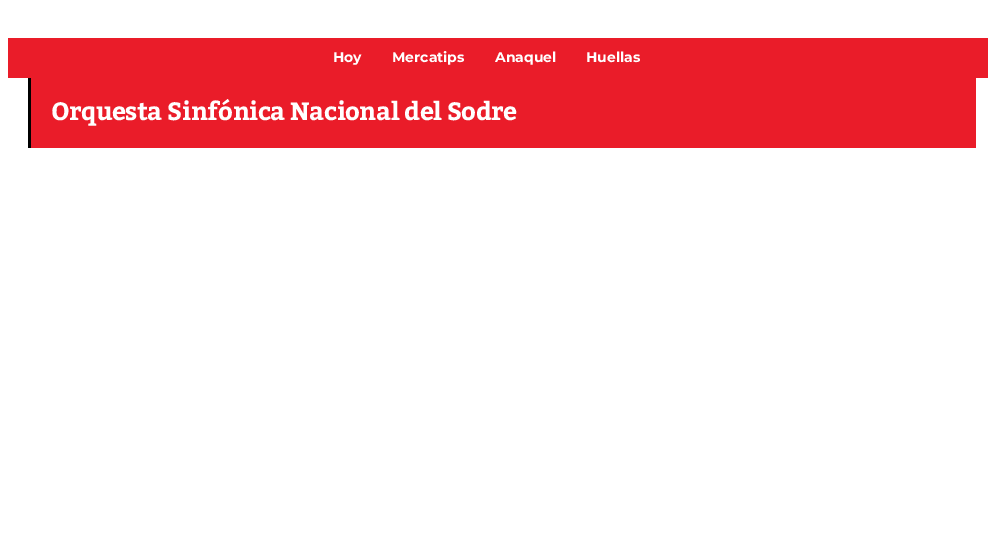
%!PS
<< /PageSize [988 535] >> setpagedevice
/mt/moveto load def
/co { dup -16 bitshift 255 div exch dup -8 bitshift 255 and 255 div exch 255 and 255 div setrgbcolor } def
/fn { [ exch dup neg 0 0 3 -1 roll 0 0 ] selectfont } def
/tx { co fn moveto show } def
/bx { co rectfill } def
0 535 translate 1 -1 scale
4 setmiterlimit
0 0 988 535 16#FFFFFF bx
8 38 980 40 16#EA1C29 bx
31 78 945 70 16#EA1C29 bx
28 78 3 70 16#000000 bx
(Hoy) 333 62 /Montserrat-Bold 14 16#FFFFFF tx
(Mercatips) 392 62 /Montserrat-Bold 14 16#FFFFFF tx
(Anaquel) 495 62 /Montserrat-Bold 14 16#FFFFFF tx
(Huellas) 586 62 /Montserrat-Bold 14 16#FFFFFF tx
/Kadwa-Bold 25 fn
51 120 mt -.5 0 (Orquesta Sinfónica Nacional del Sodre) ashow
showpage
